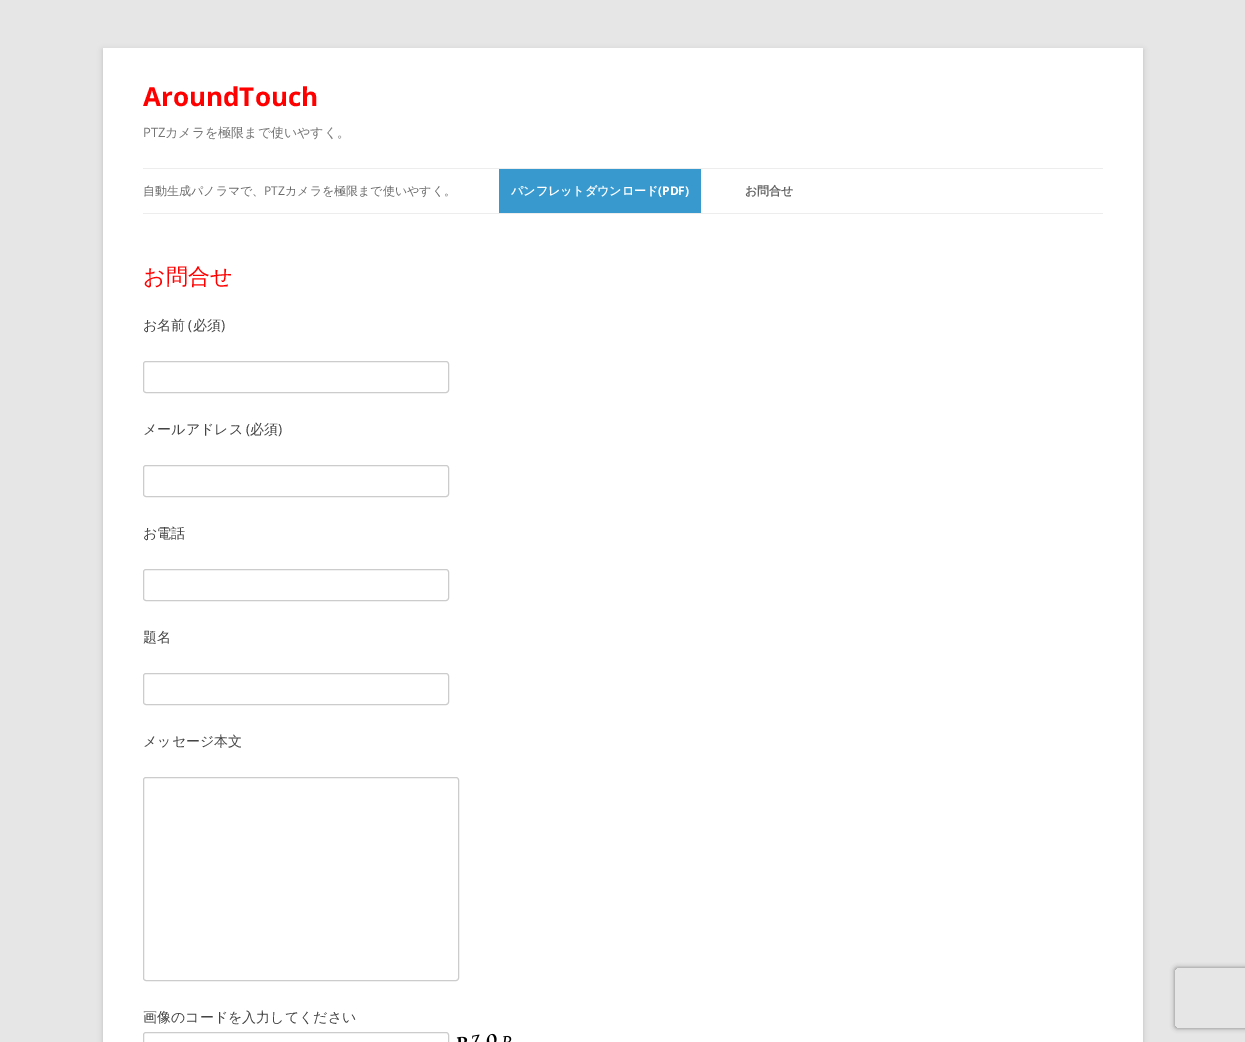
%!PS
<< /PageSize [1245 1042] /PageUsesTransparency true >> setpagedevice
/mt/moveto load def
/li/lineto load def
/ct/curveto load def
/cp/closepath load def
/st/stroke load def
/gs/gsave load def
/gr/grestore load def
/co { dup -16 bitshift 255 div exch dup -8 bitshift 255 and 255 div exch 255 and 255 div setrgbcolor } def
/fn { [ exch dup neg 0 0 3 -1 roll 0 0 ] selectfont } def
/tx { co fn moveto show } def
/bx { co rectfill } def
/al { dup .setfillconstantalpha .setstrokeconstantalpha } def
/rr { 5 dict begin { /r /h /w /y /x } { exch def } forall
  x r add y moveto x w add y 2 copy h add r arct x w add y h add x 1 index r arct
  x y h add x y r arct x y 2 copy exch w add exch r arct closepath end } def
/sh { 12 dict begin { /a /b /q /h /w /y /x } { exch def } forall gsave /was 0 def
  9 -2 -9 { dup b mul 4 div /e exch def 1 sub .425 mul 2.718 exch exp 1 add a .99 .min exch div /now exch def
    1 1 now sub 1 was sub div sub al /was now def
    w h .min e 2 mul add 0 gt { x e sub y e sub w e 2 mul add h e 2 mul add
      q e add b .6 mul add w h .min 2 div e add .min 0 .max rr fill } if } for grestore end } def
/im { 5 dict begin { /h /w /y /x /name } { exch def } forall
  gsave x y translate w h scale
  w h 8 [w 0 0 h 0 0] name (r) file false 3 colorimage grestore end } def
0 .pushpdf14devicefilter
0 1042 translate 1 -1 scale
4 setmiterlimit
0 0 1245 1042 16#E6E6E6 bx
16#646464 co
103 50 1040 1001 0 3 .3 sh
103 48 1040 994 16#FFFFFF bx
143 168 960 1 16#EDEDED bx
143 213 960 1 16#EDEDED bx
499 169 202 44 16#3899CF bx
16#CCCCCC co
143.5 361.5 305 31 2.5 rr st
143.5 465.5 305 31 2.5 rr st
143.5 569.5 305 31 2.5 rr st
143.5 673.5 305 31 2.5 rr st
143.5 777.5 315 203 2.5 rr st
143.5 1032.5 305 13 2.5 rr st
(media/1.raw) 456 1033 56 9 im
gs
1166 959 mt 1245 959 li 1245 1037 li 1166 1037 li cp 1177 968 mt 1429 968 li 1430 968 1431 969 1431 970 ct 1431 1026 li 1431 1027 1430 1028 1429 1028 ct 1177 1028 li 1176 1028 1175 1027 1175 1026 ct 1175 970 li 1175 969 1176 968 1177 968 ct cp eoclip newpath
16#808080 co
1175 968 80 60 2 2.5 1 sh
gr
(AroundTouch) 143 106 /OpenSans-Bold 26 16#FF0000 tx
(PTZ) 143 137 /OpenSans-Regular 13 16#757575 tx
(カメラを極限まで使いやすく。) 165 137 /WenQuanYiZenHei-Medium 13 16#757575 tx
(自動生成パノラマで、) 143 195 /WenQuanYiZenHei-Medium 12 16#6A6A6A tx
(PTZ) 264 195 /OpenSans-Regular 12 16#6A6A6A tx
(カメラを極限まで使いやすく。) 285 195 /WenQuanYiZenHei-Medium 12 16#6A6A6A tx
(パンフレットダウンロード) 511 195 /WenQuanYiZenHei-Bold 12 16#FFFFFF tx
(\(PDF\)) 658 195 /OpenSans-Bold 12 16#FFFFFF tx
(お問合せ) 745 195 /WenQuanYiZenHei-Bold 12 16#636363 tx
(お問合せ) 143 284 /WenQuanYiZenHei-Medium 22 16#FF0000 tx
(お名前) 143 330 /WenQuanYiZenHei-Medium 14 16#444444 tx
(\() 188 330 /OpenSans-Regular 14 16#444444 tx
(必須) 193 330 /WenQuanYiZenHei-Medium 14 16#444444 tx
(\)) 221 330 /OpenSans-Regular 14 16#444444 tx
(メールアドレス) 143 434 /WenQuanYiZenHei-Medium 14 16#444444 tx
(\() 246 434 /OpenSans-Regular 14 16#444444 tx
(必須) 250 434 /WenQuanYiZenHei-Medium 14 16#444444 tx
(\)) 278 434 /OpenSans-Regular 14 16#444444 tx
(お電話) 143 538 /WenQuanYiZenHei-Medium 14 16#444444 tx
(題名) 143 642 /WenQuanYiZenHei-Medium 14 16#444444 tx
(メッセージ本文) 143 746 /WenQuanYiZenHei-Medium 14 16#444444 tx
(画像のコードを入力してください) 143 1022 /WenQuanYiZenHei-Medium 14 16#444444 tx
.poppdf14devicefilter showpage
